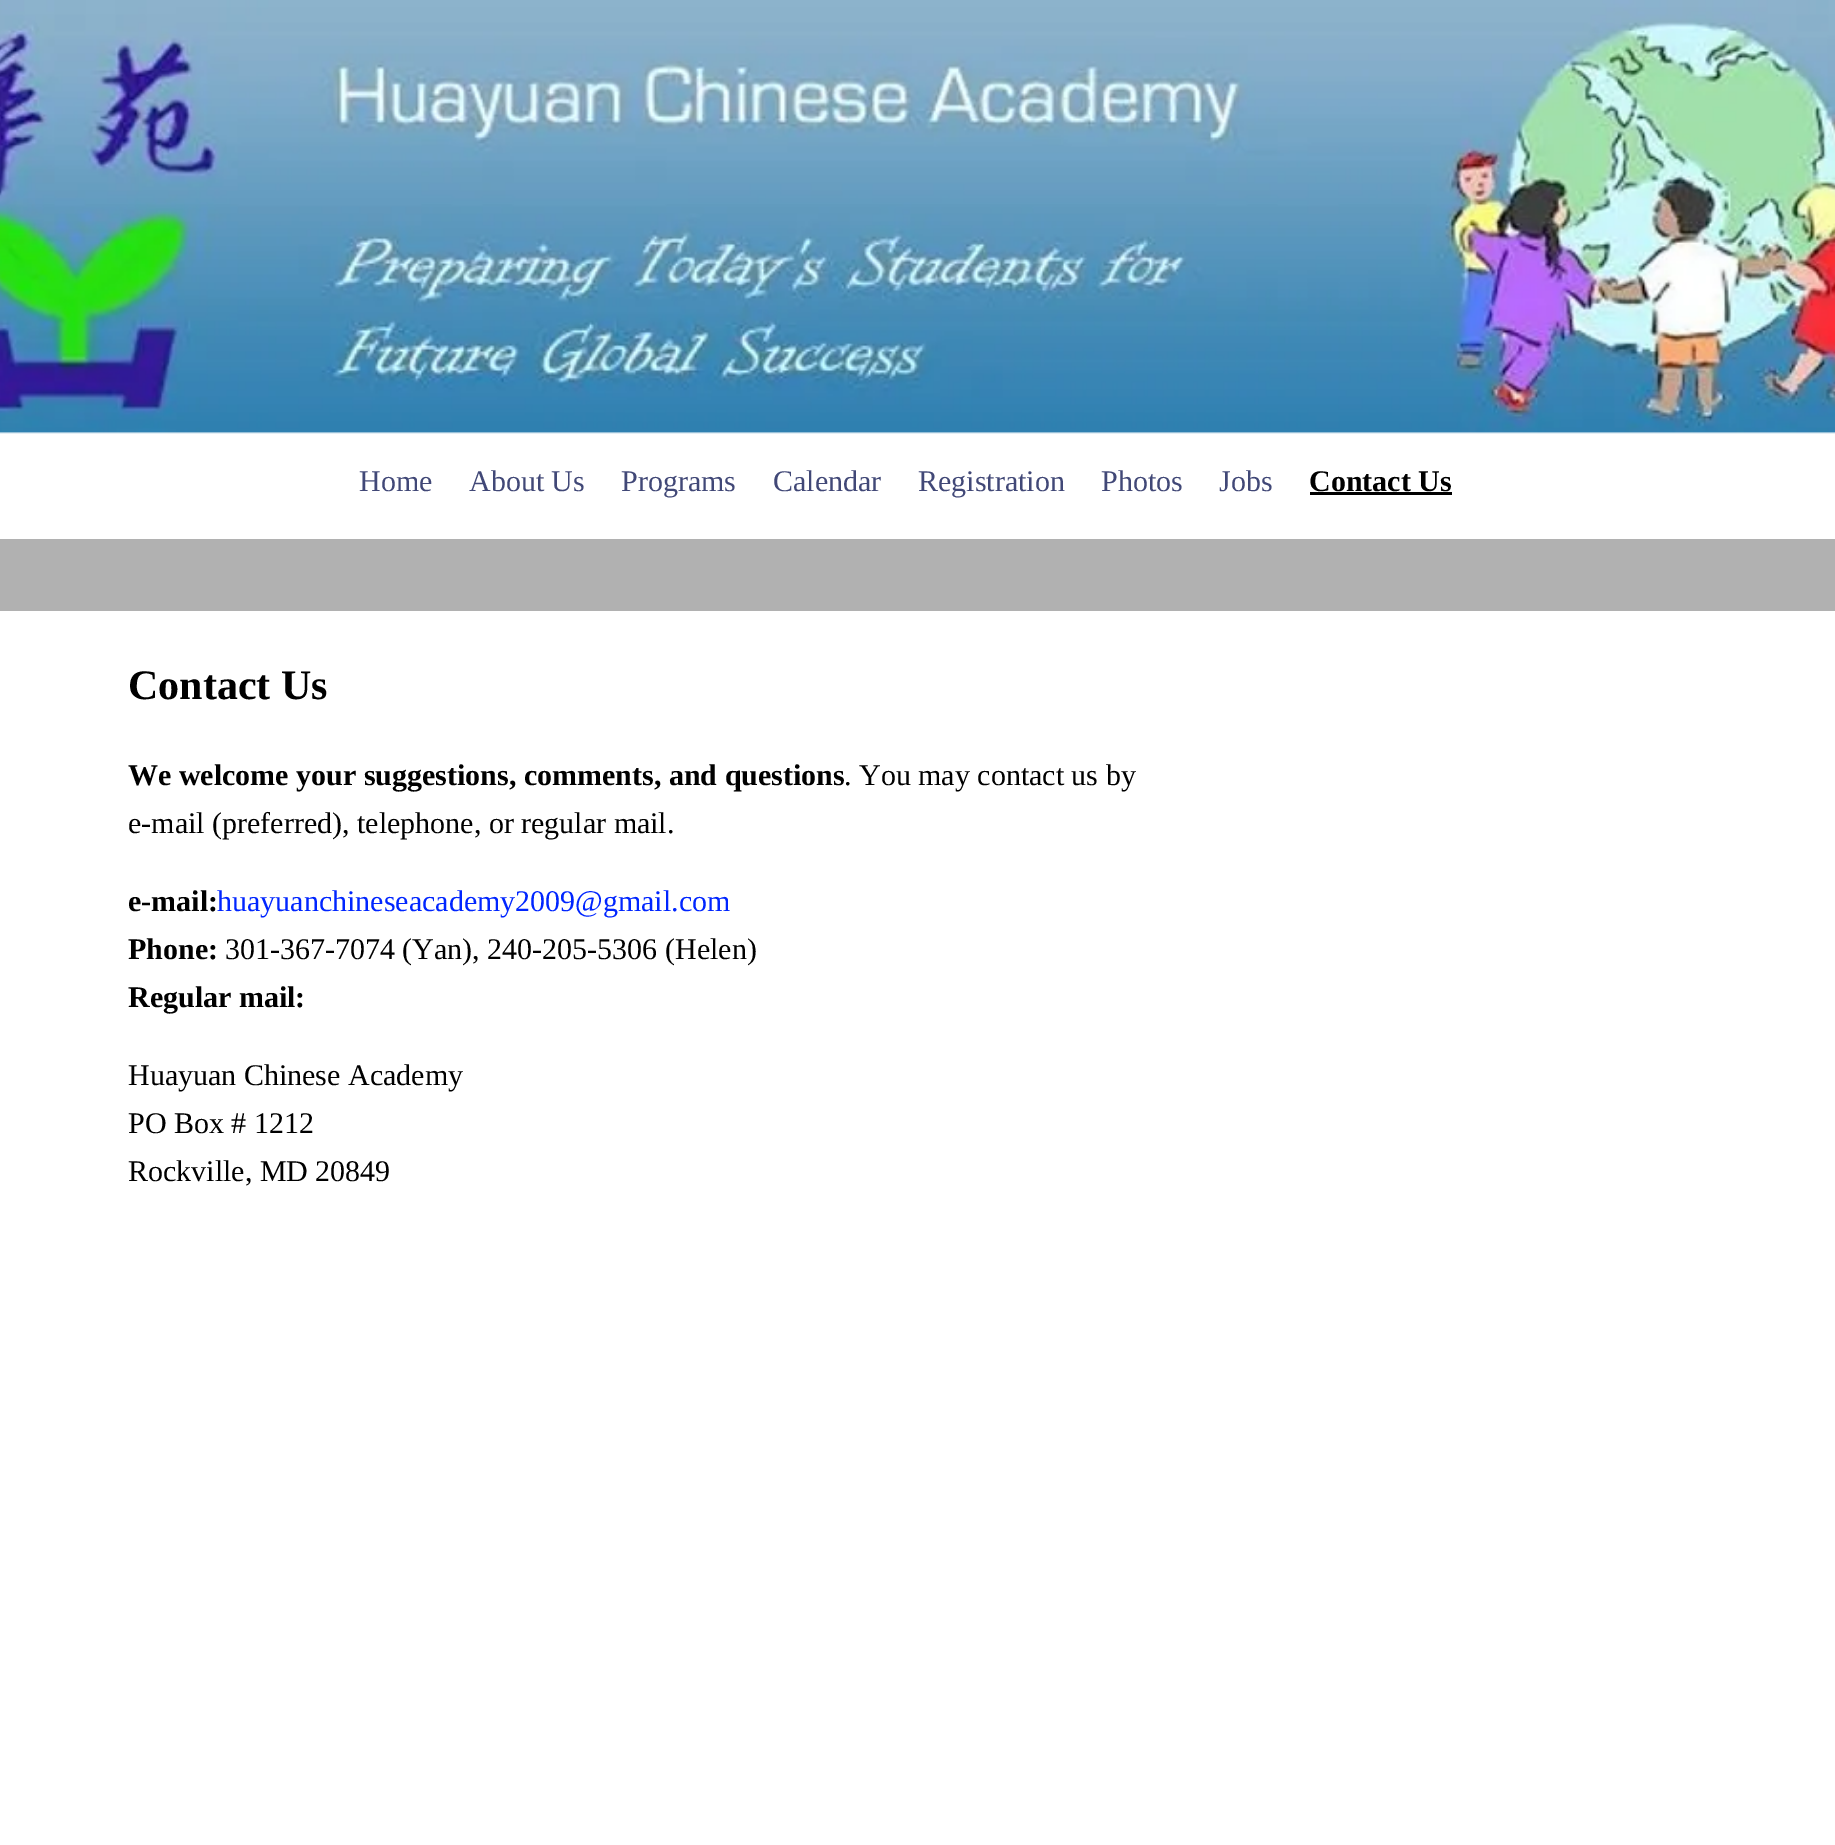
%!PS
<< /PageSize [1835 1845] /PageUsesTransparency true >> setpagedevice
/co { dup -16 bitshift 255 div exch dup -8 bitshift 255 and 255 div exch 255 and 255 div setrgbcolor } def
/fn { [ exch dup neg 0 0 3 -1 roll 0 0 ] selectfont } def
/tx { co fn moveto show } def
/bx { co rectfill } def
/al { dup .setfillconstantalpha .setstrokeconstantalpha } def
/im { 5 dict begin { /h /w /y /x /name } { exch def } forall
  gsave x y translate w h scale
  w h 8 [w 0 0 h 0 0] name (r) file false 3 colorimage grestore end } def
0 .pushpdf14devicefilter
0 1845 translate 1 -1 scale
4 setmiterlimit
0 0 1835 1845 16#B1B1B1 bx
0 433 1835 106 16#FFFFFF bx
(media/1.raw) 0 0 1835 434 im
0.5 al
0 432 1835 2 16#FFFFFF bx
1 al
1310 492 142 3 16#000000 bx
0 611 1835 1234 16#FFFFFF bx
(Home) 359 491 /LiberationSerif-Regular 30 16#414877 tx
(About Us) 469 491 /LiberationSerif-Regular 30 16#414877 tx
(Programs) 621 491 /LiberationSerif-Regular 30 16#414877 tx
(Calendar) 773 491 /LiberationSerif-Regular 30 16#414877 tx
(Registration) 918 491 /LiberationSerif-Regular 30 16#414877 tx
(Photos) 1101 491 /LiberationSerif-Regular 30 16#414877 tx
(Jobs) 1219 491 /LiberationSerif-Regular 30 16#414877 tx
(Contact Us) 1309 491 /LiberationSerif-Bold 30 16#000000 tx
(Contact Us) 128 699 /LiberationSerif-Bold 42 16#000000 tx
(We welcome your suggestions, comments, and questions) 128 785 /LiberationSerif-Bold 30 16#000000 tx
(. You may contact us by) 844 785 /LiberationSerif-Regular 30 16#000000 tx
(e-mail \(preferred\), telephone, or regular mail.) 128 833 /LiberationSerif-Regular 30 16#000000 tx
(e-mail:) 128 911 /LiberationSerif-Bold 30 16#000000 tx
(huayuanchineseacademy2009@gmail.com) 217 911 /LiberationSerif-Regular 30 16#0025FF tx
(Phone:) 128 959 /LiberationSerif-Bold 30 16#000000 tx
(301-367-7074 \(Yan\), 240-205-5306 \(Helen\)) 225 959 /LiberationSerif-Regular 30 16#000000 tx
(Regular mail:) 128 1007 /LiberationSerif-Bold 30 16#000000 tx
(Huayuan Chinese Academy) 128 1085 /LiberationSerif-Regular 30 16#000000 tx
(PO Box # 1212) 128 1133 /LiberationSerif-Regular 30 16#000000 tx
(Rockville, MD 20849) 128 1181 /LiberationSerif-Regular 30 16#000000 tx
.poppdf14devicefilter showpage
